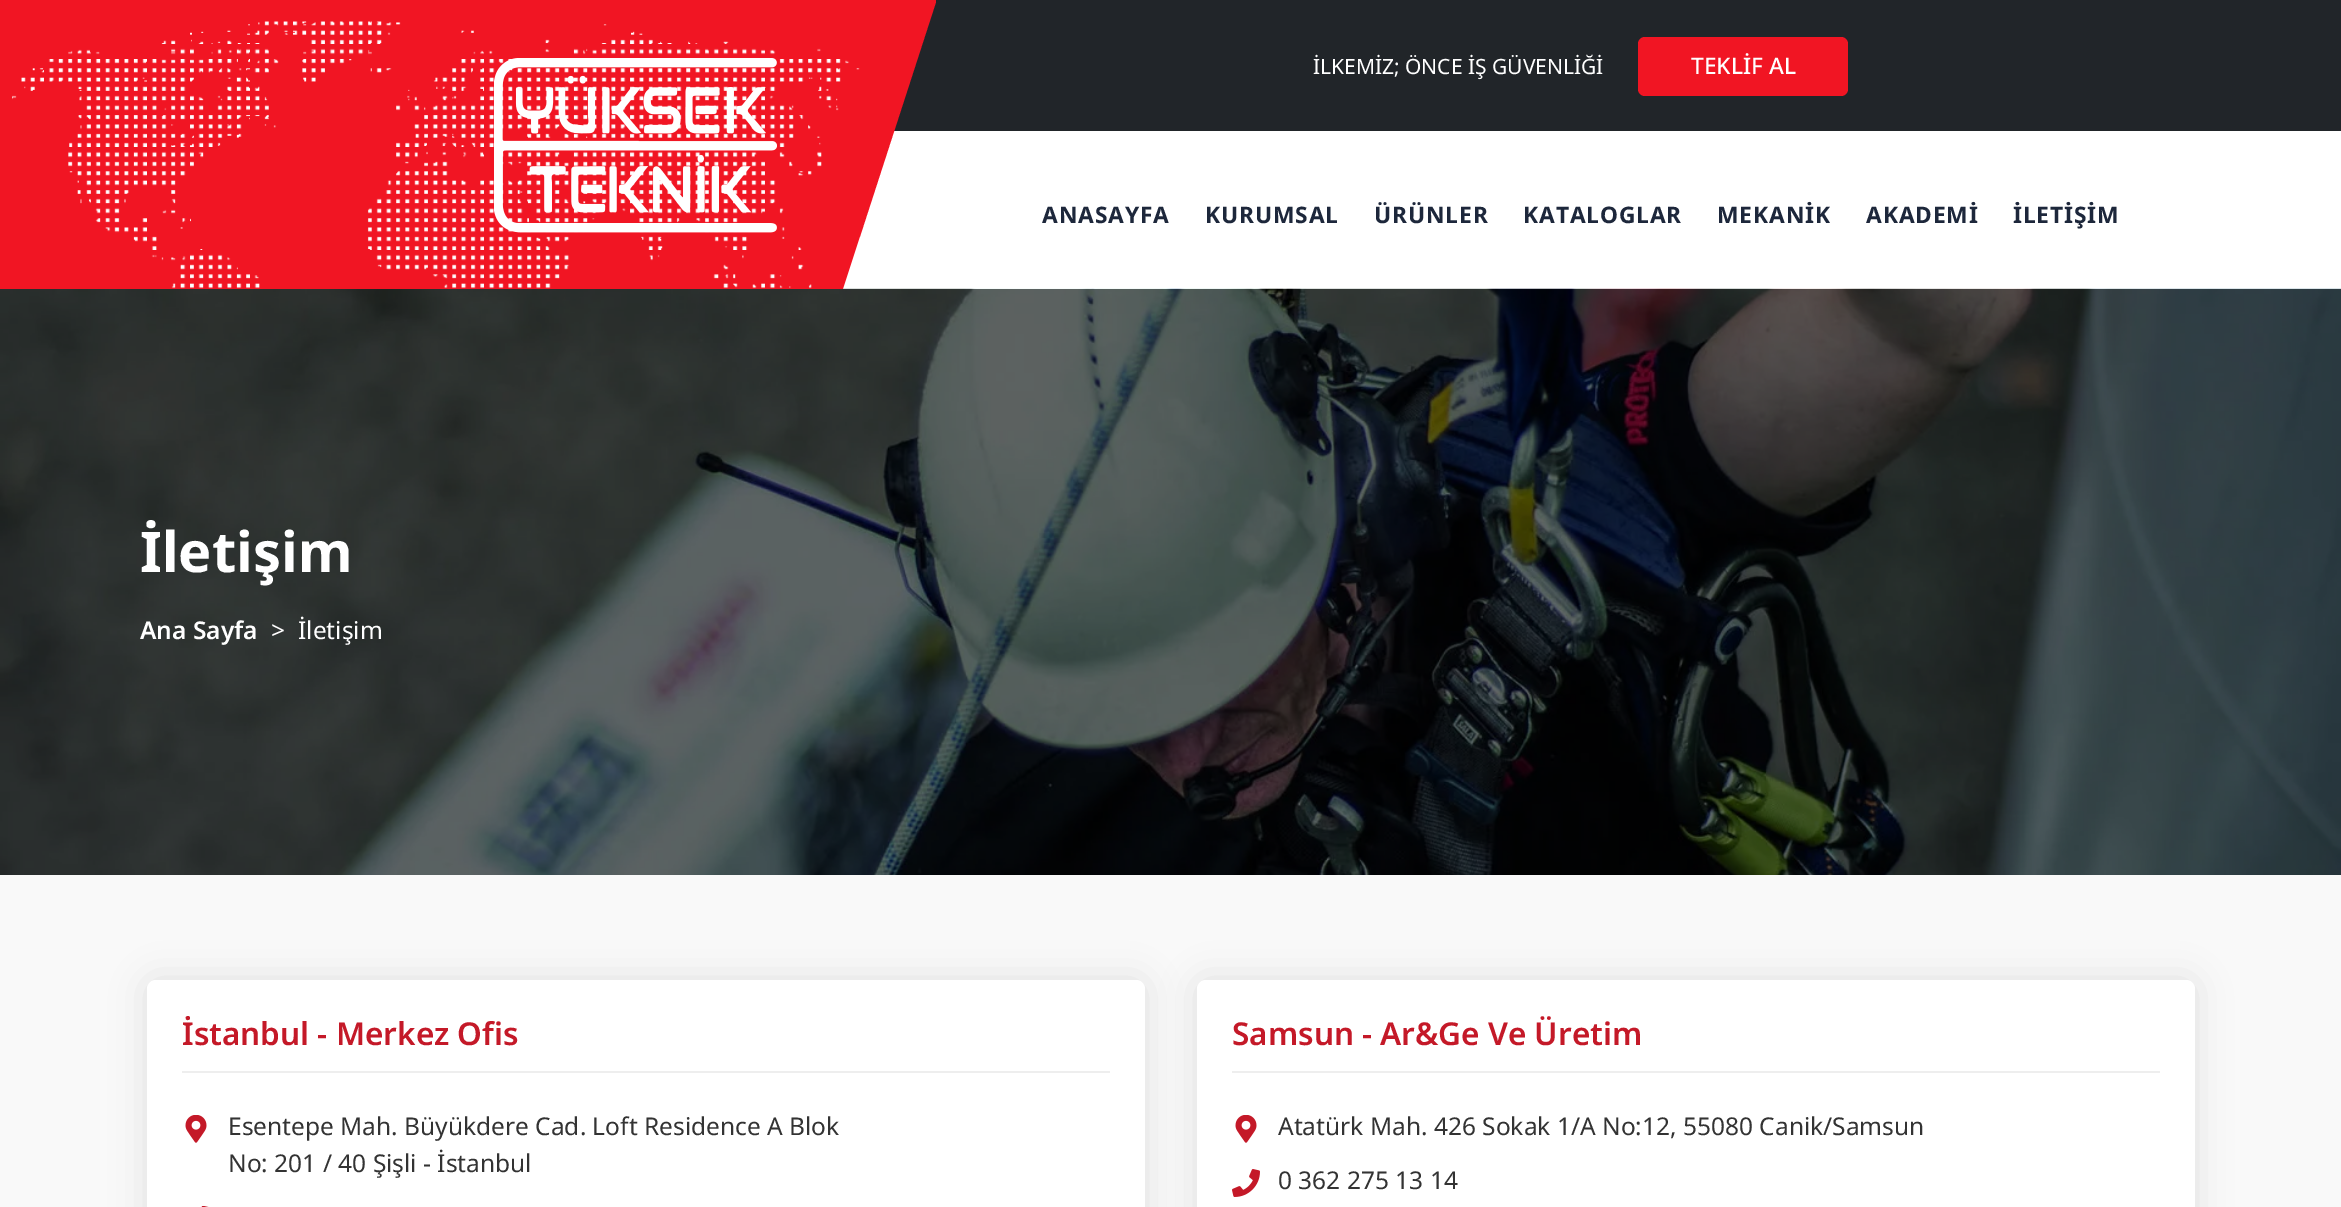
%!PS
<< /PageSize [2341 1207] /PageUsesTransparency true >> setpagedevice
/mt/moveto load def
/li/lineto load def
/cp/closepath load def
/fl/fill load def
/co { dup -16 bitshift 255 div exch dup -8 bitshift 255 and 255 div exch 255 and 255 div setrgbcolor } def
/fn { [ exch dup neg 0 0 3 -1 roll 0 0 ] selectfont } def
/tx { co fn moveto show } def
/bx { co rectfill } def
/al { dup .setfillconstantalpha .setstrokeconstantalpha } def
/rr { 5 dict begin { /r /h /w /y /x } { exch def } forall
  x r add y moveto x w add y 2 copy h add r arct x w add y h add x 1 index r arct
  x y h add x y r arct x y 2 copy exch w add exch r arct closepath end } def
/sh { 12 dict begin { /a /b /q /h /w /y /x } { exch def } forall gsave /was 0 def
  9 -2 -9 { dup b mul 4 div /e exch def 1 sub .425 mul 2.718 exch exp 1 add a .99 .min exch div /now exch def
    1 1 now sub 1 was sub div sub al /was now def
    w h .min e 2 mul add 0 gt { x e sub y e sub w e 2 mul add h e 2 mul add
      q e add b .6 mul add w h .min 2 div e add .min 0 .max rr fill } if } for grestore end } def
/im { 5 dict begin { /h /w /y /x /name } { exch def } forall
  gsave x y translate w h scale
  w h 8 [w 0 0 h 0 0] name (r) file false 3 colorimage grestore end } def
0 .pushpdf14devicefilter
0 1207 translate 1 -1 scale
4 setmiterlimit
0 0 2341 1207 16#FFFFFF bx
894 0 1447 131 16#212529 bx
(media/3.raw) 0 288 2341 587 im
16#F11523 co
0 0 mt 0 289 li 843 289 li 936 2 li 936 0 li cp fl
(media/1.raw) 12 21 848 268 im
(media/2.raw) 494 58 283 175 im
1638 37 210 59 7 rr fl
0 875 2341 332 16#F9F9F9 bx
16#000000 co
147 980 998 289 9 17.5 .1 sh
16#FFFFFF co
147 980 998 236 9 rr fl
182 1071 928 2 16#EEEEEE bx
(media/4.raw) 185 1115 22 28 im
(media/5.raw) 201 1206 8 1 im
16#000000 co
1197 980 998 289 9 17.5 .1 sh
16#FFFFFF co
1197 980 998 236 9 rr fl
1232 1071 928 2 16#EEEEEE bx
(media/4.raw) 1235 1115 22 28 im
(media/6.raw) 1232 1169 28 28 im
(İLKEMİZ; ÖNCE İŞ GÜVENLİĞİ) 1313 74 /NotoSans-Regular 21 16#FFFFFF tx
(TEKLİF AL) 1691 74 /NotoSans-Medium 22.75 16#FFFFFF tx
/NotoSans-Bold 22.75 fn
16#1D273B co
1042 223 mt .9 0 (ANASAYFA) ashow
1205 223 mt .9 0 (KURUMSAL) ashow
1374 223 mt .9 0 (ÜRÜNLER) ashow
1523 223 mt .9 0 (KATALOGLAR) ashow
1717 223 mt .9 0 (MEKANİK) ashow
1866 223 mt .9 0 (AKADEMİ) ashow
2013 223 mt .9 0 (İLETİŞİM) ashow
(İletişim) 140 572 /NotoSans-Bold 56 16#FFFFFF tx
(Ana Sayfa) 140 639 /NotoSans-SemiBold 24.5 16#FFFFFF tx
(>) 271 639 /NotoSans-Regular 24.5 16#FFFFFF tx
(İletişim) 298 639 /NotoSans-Regular 24.5 16#FFFFFF tx
(İstanbul - Merkez Ofis) 182 1045 /NotoSans-SemiBold 31.5 16#C41928 tx
(Esentepe Mah. Büyükdere Cad. Loft Residence A Blok) 228 1135 /NotoSans-Regular 24.5 16#333333 tx
(No: 201 / 40 Şişli - İstanbul) 228 1172 /NotoSans-Regular 24.5 16#333333 tx
(Samsun - Ar&Ge Ve Üretim) 1232 1045 /NotoSans-SemiBold 31.5 16#C41928 tx
(Atatürk Mah. 426 Sokak 1/A No:12, 55080 Canik/Samsun) 1278 1135 /NotoSans-Regular 24.5 16#333333 tx
(0 362 275 13 14) 1278 1189 /NotoSans-Regular 24.5 16#333333 tx
.poppdf14devicefilter showpage
